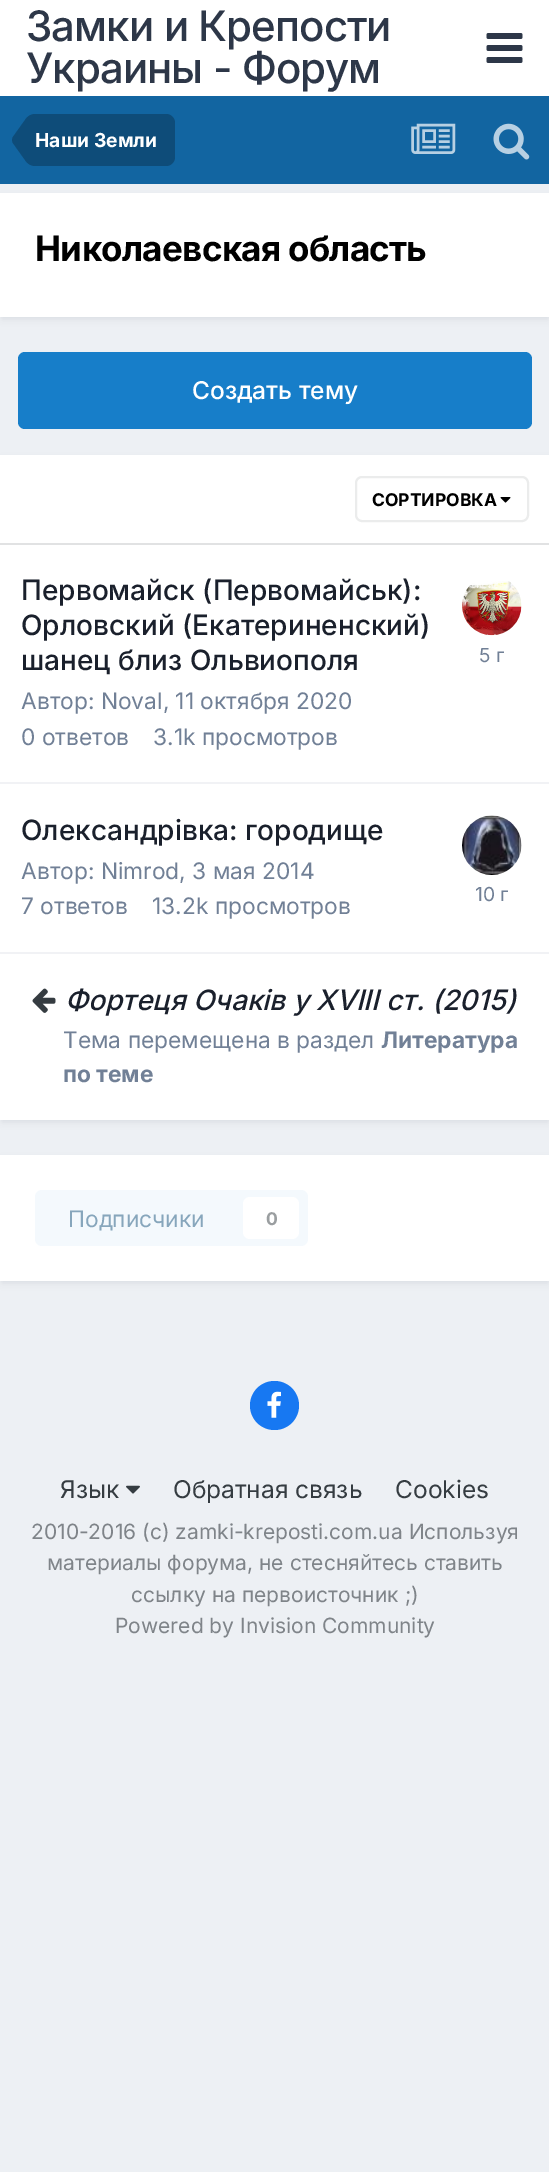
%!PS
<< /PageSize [549 2172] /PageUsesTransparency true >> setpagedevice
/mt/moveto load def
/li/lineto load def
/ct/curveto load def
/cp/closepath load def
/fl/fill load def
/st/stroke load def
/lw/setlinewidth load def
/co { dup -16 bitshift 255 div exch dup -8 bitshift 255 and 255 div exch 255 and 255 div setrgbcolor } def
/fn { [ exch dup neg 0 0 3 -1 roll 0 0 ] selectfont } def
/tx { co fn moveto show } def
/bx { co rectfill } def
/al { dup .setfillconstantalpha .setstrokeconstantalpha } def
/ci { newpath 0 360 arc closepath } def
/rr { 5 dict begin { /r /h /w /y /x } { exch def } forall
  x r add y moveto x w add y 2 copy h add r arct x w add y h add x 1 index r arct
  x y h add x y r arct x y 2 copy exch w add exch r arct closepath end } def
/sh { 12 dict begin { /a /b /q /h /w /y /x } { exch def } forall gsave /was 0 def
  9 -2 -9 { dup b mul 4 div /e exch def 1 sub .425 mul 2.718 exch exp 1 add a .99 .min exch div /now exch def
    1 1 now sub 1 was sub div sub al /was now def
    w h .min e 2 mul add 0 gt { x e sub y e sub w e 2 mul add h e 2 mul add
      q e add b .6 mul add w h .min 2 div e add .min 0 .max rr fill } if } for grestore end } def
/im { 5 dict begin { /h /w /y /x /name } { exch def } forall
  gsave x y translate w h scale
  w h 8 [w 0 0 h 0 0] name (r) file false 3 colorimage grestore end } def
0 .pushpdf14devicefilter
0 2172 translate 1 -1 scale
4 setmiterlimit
0 0 549 2172 16#EDF0F4 bx
0 0 549 96 16#FFFFFF bx
(media/1.raw) 486 33 37 30 im
0 96 549 88 16#1265A1 bx
16#0E4C79 co
35 114 mt 166 114 li 171 114 175 118 175 123 ct 175 157 li 175 162 171 166 166 166 ct 35 166 li cp fl
35 140 mt 35 166 li 31 166 27.5 164 25 160 ct 12.5 142.5 li 12 140 li cp 35 140 mt 12 140 li 12.5 137.5 li 25 120 li 27.5 116 31 114 35 114 ct cp fl
(media/2.raw) 411 123 45 31 im
(media/3.raw) 493 123 37 37 im
16#2D3748 co
2 198 546 121 0 3.5 .1 sh
0 193 549 124 16#FFFFFF bx
16#177EC9 co
18 352 514 77 7 rr fl
16#2D3748 co
2 460 546 662 0 3.5 .1 sh
0 455 549 665 16#FFFFFF bx
0 543 549 2 16#E1E2E3 bx
(media/4.raw) 500 497 11 6 im
16#EBECEC co
2 lw
356 477 172 44 6 rr st
0 782 549 2 16#F1F2F5 bx
(media/5.raw) 462 581 60 55 im
0 952 549 2 16#F1F2F5 bx
(media/6.raw) 462 815 60 60 im
(media/7.raw) 32 988 24 25 im
16#2D3748 co
2 1160 546 123 0 3.5 .1 sh
0 1155 549 126 16#FFFFFF bx
16#F4F9FD co
35 1190 273 56 7 rr fl
16#FFFFFF co
243 1197 56 42 7 rr fl
16#1778F2 co
274.5 1405.5 24.5 ci fl
(media/8.raw) 267 1391 14 27 im
(media/9.raw) 126 1485 14 9 im
/Inter-Medium 42 fn
16#2D3748 co
26 41 mt -.9 0 (Замки и Крепости) ashow
26 83 mt -.9 0 (Украины - Форум) ashow
(Наши Земли) 35 147 /Inter-Bold 19.25 16#FFFFFF tx
/Inter-Bold 35 fn
16#000000 co
35 261 mt -.7 0 (Николаевская область) ashow
(Создать тему) 192 399 /Inter-Medium 24.5 16#FFFFFF tx
(СОРТИРОВКА) 372 506 /Inter-Bold 17.5 16#000000 tx
(Первомайск \(Первомайськ\):) 21 600 /Inter-Medium 28 16#1A202C tx
(Орловский \(Екатериненский\)) 21 635 /Inter-Medium 28 16#1A202C tx
(шанец близ Ольвиополя) 21 670 /Inter-Medium 28 16#1A202C tx
(Автор: Noval, 11 октября 2020) 21 709 /Inter-Regular 22.75 16#718096 tx
(5 г) 479 662 /Inter-Regular 19.25 16#718096 tx
(0 ответов) 21 745 /Inter-Regular 22.75 16#718096 tx
(3.1k просмотров) 153 745 /Inter-Regular 22.75 16#718096 tx
(Олександрівка: городище) 21 840 /Inter-Medium 28 16#1A202C tx
(Автор: Nimrod, 3 мая 2014) 21 879 /Inter-Regular 22.75 16#718096 tx
(10 г) 475 901 /Inter-Regular 19.25 16#718096 tx
(7 ответов) 21 914 /Inter-Regular 22.75 16#718096 tx
(13.2k просмотров) 152 914 /Inter-Regular 22.75 16#718096 tx
(Фортеця Очаків у ХVІІІ ст. \(2015\)) 65 1010 /Inter-MediumItalic 28 16#1A202C tx
(Тема перемещена в раздел) 63 1048 /Inter-Regular 22.75 16#718096 tx
(Литература) 381 1048 /Inter-Bold 22.75 16#718096 tx
(по теме) 63 1082 /Inter-Bold 22.75 16#718096 tx
(Подписчики) 68 1227 /Inter-Regular 22.75 16#87A6BC tx
(0) 266 1225 /Inter-Bold 17.5 16#9A9EA0 tx
(Язык) 60 1498 /Inter-Regular 24.5 16#353C41 tx
(Обратная связь) 173 1498 /Inter-Regular 24.5 16#353C41 tx
(Cookies) 395 1498 /Inter-Regular 24.5 16#353C41 tx
(2010-2016 \(с\) zamki-kreposti.com.ua Используя) 31 1539 /Inter-Regular 21 16#7F8489 tx
(материалы форума, не стесняйтесь ставить) 47 1570 /Inter-Regular 21 16#7F8489 tx
(ссылку на первоисточник ;\)) 131 1602 /Inter-Regular 21 16#7F8489 tx
(Powered by Invision Community) 115 1633 /Inter-Regular 21 16#7F8489 tx
.poppdf14devicefilter showpage
